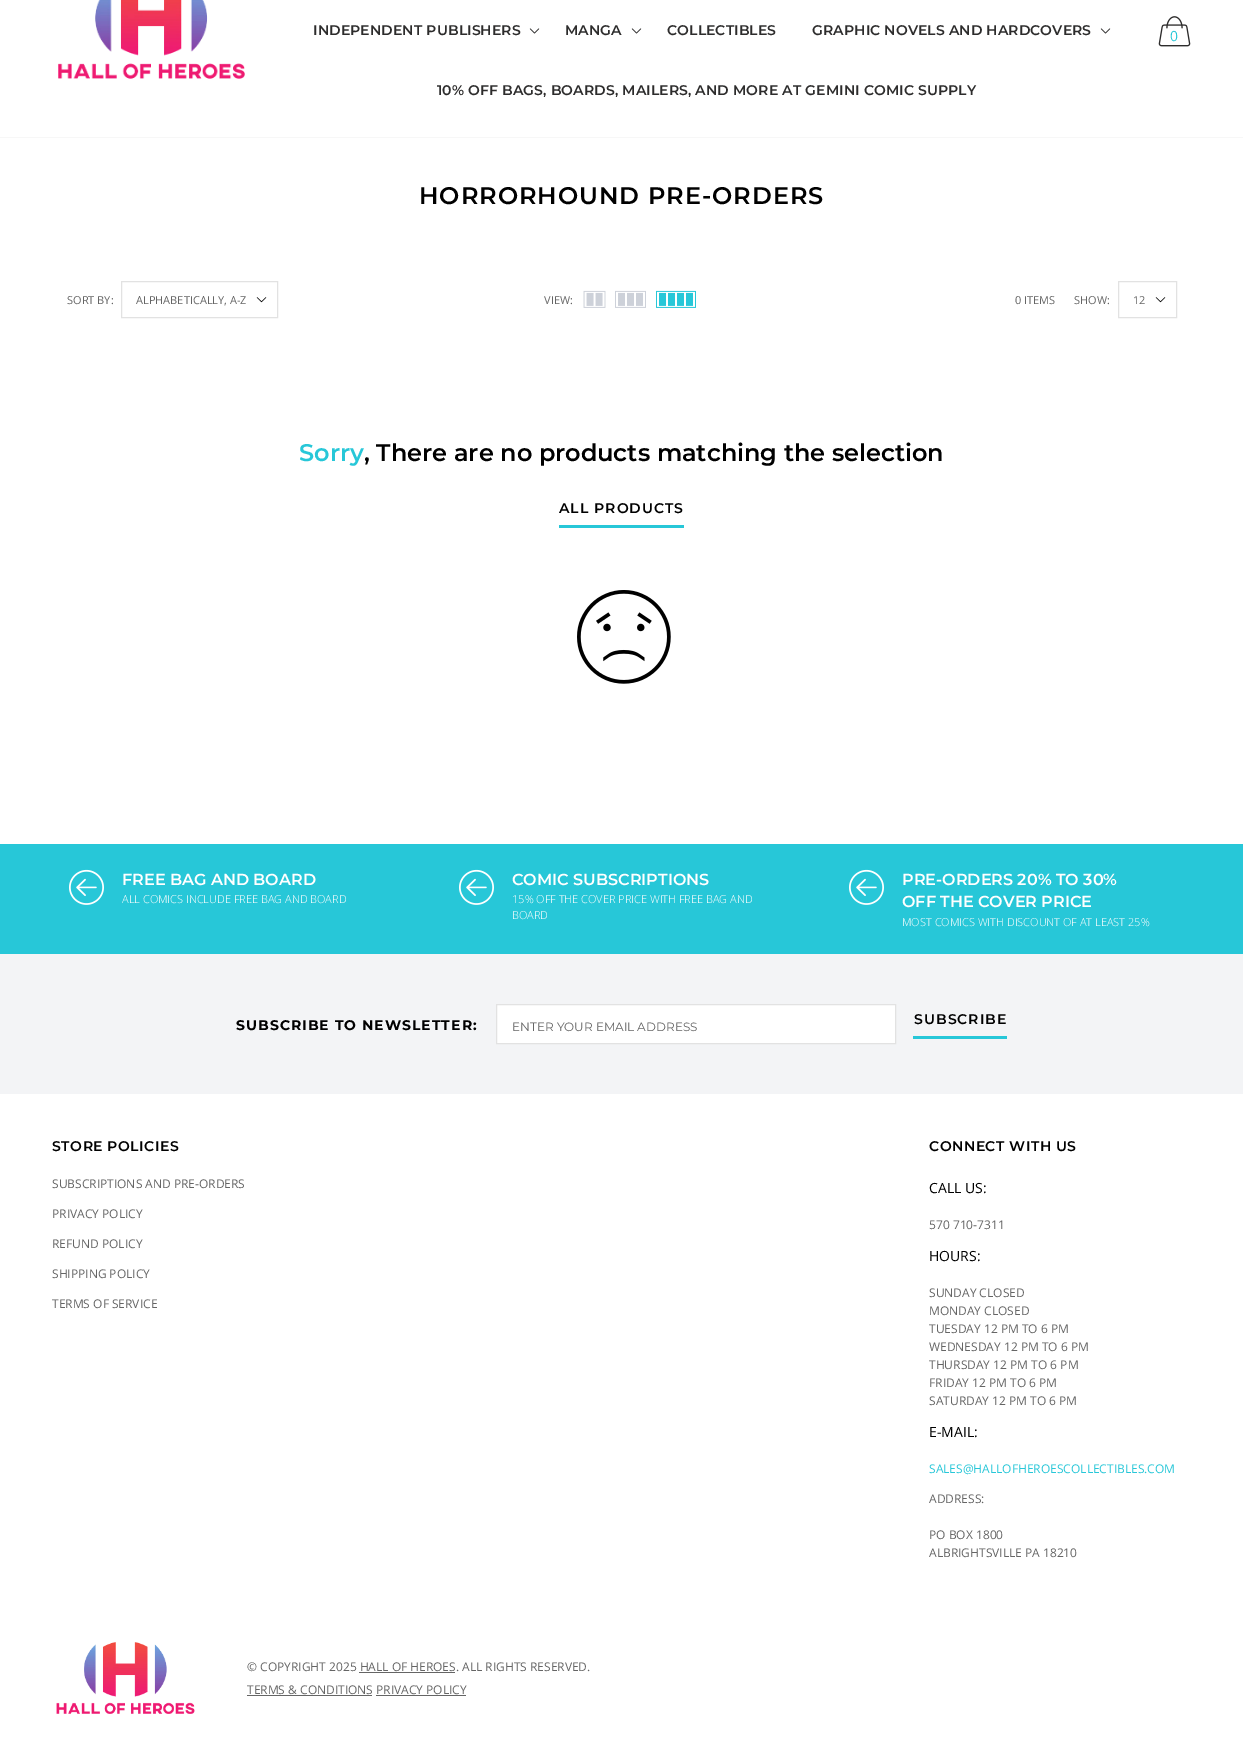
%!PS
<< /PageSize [1243 1741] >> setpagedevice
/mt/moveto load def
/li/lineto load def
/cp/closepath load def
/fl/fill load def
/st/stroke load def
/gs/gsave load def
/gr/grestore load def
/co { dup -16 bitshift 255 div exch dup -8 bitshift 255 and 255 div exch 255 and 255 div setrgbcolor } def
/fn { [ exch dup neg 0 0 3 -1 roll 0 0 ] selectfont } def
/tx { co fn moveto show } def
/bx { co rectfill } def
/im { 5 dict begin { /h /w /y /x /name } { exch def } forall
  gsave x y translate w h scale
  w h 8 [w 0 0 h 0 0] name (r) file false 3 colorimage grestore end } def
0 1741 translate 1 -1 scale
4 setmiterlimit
0 0 1243 1741 16#FFFFFF bx
0 137 1243 1 16#F7F7F7 bx
(media/1.raw) 58 0 187 79 im
(media/2.raw) 529 28 11 6 im
(media/2.raw) 631 28 11 6 im
(media/2.raw) 1100 28 11 6 im
(media/3.raw) 1158 16 33 31 im
16#E2E2E2 co
121.5 281.5 156 36 rectstroke
(media/4.raw) 256 297 11 6 im
(media/5.raw) 583 290 23 18 im
(media/6.raw) 615 290 31 18 im
(media/7.raw) 656 290 40 18 im
1118.5 281.5 58 36 rectstroke
(media/4.raw) 1155 297 11 6 im
559 525 125 3 16#27C7D8 bx
(media/8.raw) 577 590 94 94 im
0 844 1243 110 16#27C7D8 bx
(media/9.raw) 69 869 35 36 im
(media/9.raw) 459 869 35 36 im
(media/9.raw) 849 869 35 36 im
0 954 1243 140 16#F3F4F6 bx
16#FFFFFF co
496.5 1004.5 mt 895.5 1004.5 li 895.5 1043.5 li 496.5 1043.5 li cp gs fl gr
16#E2E2E2 co
st
913 1036 94 3 16#27C7D8 bx
(media/10.raw) 56 1642 139 72 im
359 1672 96 1 16#656565 bx
247 1695 125 1 16#656565 bx
376 1695 90 1 16#656565 bx
/Montserrat-SemiBold 14 fn
16#2D2C2C co
313 35 mt .1 0 (INDEPENDENT PUBLISHERS) ashow
565 35 mt .1 0 (MANGA) ashow
667 35 mt .1 0 (COLLECTIBLES) ashow
812 35 mt .1 0 (GRAPHIC NOVELS AND HARDCOVERS) ashow
437 95 mt .1 0 (10% OFF BAGS, BOARDS, MAILERS, AND MORE AT GEMINI COMIC SUPPLY) ashow
(0) 1170 41 /OpenSans-Regular 14 16#27C7D8 tx
/Montserrat-SemiBold 24 fn
16#000000 co
419 204 mt 1 0 (HORRORHOUND PRE-ORDERS) ashow
(SORT BY:) 67 304 /OpenSans-Regular 11 16#656565 tx
(ALPHABETICALLY, A-Z) 136 304 /OpenSans-Regular 11 16#656565 tx
(VIEW:) 544 304 /OpenSans-Regular 11 16#656565 tx
(0 ITEMS) 1015 304 /OpenSans-Regular 11 16#656565 tx
(SHOW:) 1074 304 /OpenSans-Regular 11 16#656565 tx
(12) 1133 304 /OpenSans-Regular 11 16#656565 tx
(Sorry) 299 461 /Montserrat-SemiBold 24 16#27C7D8 tx
(, There are no products matching the selection) 364 461 /Montserrat-SemiBold 24 16#000000 tx
/Montserrat-SemiBold 14 fn
559 513 mt 1 0 (ALL PRODUCTS) ashow
(FREE BAG AND BOARD) 122 885 /Montserrat-SemiBold 16 16#FFFFFF tx
(ALL COMICS INCLUDE FREE BAG AND BOARD) 122 903 /OpenSans-Light 11 16#FFFFFF tx
(COMIC SUBSCRIPTIONS) 512 885 /Montserrat-SemiBold 16 16#FFFFFF tx
(15% OFF THE COVER PRICE WITH FREE BAG AND) 512 903 /OpenSans-Light 11 16#FFFFFF tx
(BOARD) 512 919 /OpenSans-Light 11 16#FFFFFF tx
(PRE-ORDERS 20% TO 30%) 902 885 /Montserrat-SemiBold 16 16#FFFFFF tx
(OFF THE COVER PRICE) 902 907 /Montserrat-SemiBold 16 16#FFFFFF tx
(MOST COMICS WITH DISCOUNT OF AT LEAST 25%) 902 926 /OpenSans-Light 11 16#FFFFFF tx
/Montserrat-Bold 14 fn
16#000000 co
236 1030 mt 1 0 (SUBSCRIBE TO NEWSLETTER:) ashow
(ENTER YOUR EMAIL ADDRESS) 512 1031 /Montserrat-Regular 12 16#656565 tx
/Montserrat-SemiBold 14 fn
16#000000 co
914 1024 mt 1 0 (SUBSCRIBE) ashow
52 1151 mt .5 0 (STORE POLICIES) ashow
(SUBSCRIPTIONS AND PRE-ORDERS) 52 1188 /OpenSans-Regular 12 16#656565 tx
(PRIVACY POLICY) 52 1218 /OpenSans-Regular 12 16#656565 tx
(REFUND POLICY) 52 1248 /OpenSans-Regular 12 16#656565 tx
(SHIPPING POLICY) 52 1278 /OpenSans-Regular 12 16#656565 tx
(TERMS OF SERVICE) 52 1308 /OpenSans-Regular 12 16#656565 tx
/Montserrat-SemiBold 14 fn
16#000000 co
929 1151 mt .5 0 (CONNECT WITH US) ashow
(CALL US:) 929 1193 /OpenSans-Regular 14 16#000000 tx
(570 710-7311) 929 1229 /OpenSans-Regular 12 16#656565 tx
(HOURS:) 929 1261 /OpenSans-Regular 14 16#000000 tx
(SUNDAY CLOSED) 929 1297 /OpenSans-Regular 12 16#656565 tx
(MONDAY CLOSED) 929 1315 /OpenSans-Regular 12 16#656565 tx
(TUESDAY 12 PM TO 6 PM) 929 1333 /OpenSans-Regular 12 16#656565 tx
(WEDNESDAY 12 PM TO 6 PM) 929 1351 /OpenSans-Regular 12 16#656565 tx
(THURSDAY 12 PM TO 6 PM) 929 1369 /OpenSans-Regular 12 16#656565 tx
(FRIDAY 12 PM TO 6 PM) 929 1387 /OpenSans-Regular 12 16#656565 tx
(SATURDAY 12 PM TO 6 PM) 929 1405 /OpenSans-Regular 12 16#656565 tx
(E-MAIL:) 929 1437 /OpenSans-Regular 14 16#000000 tx
(SALES@HALLOFHEROESCOLLECTIBLES.COM) 929 1473 /OpenSans-Regular 12 16#27C7D8 tx
(ADDRESS:) 929 1503 /OpenSans-Regular 12 16#656565 tx
(PO BOX 1800) 929 1539 /OpenSans-Regular 12 16#656565 tx
(ALBRIGHTSVILLE PA 18210) 929 1557 /OpenSans-Regular 12 16#656565 tx
(© COPYRIGHT 2025 HALL OF HEROES. ALL RIGHTS RESERVED.) 247 1671 /OpenSans-Regular 12 16#656565 tx
(TERMS & CONDITIONS PRIVACY POLICY) 247 1694 /OpenSans-Regular 12 16#656565 tx
showpage
